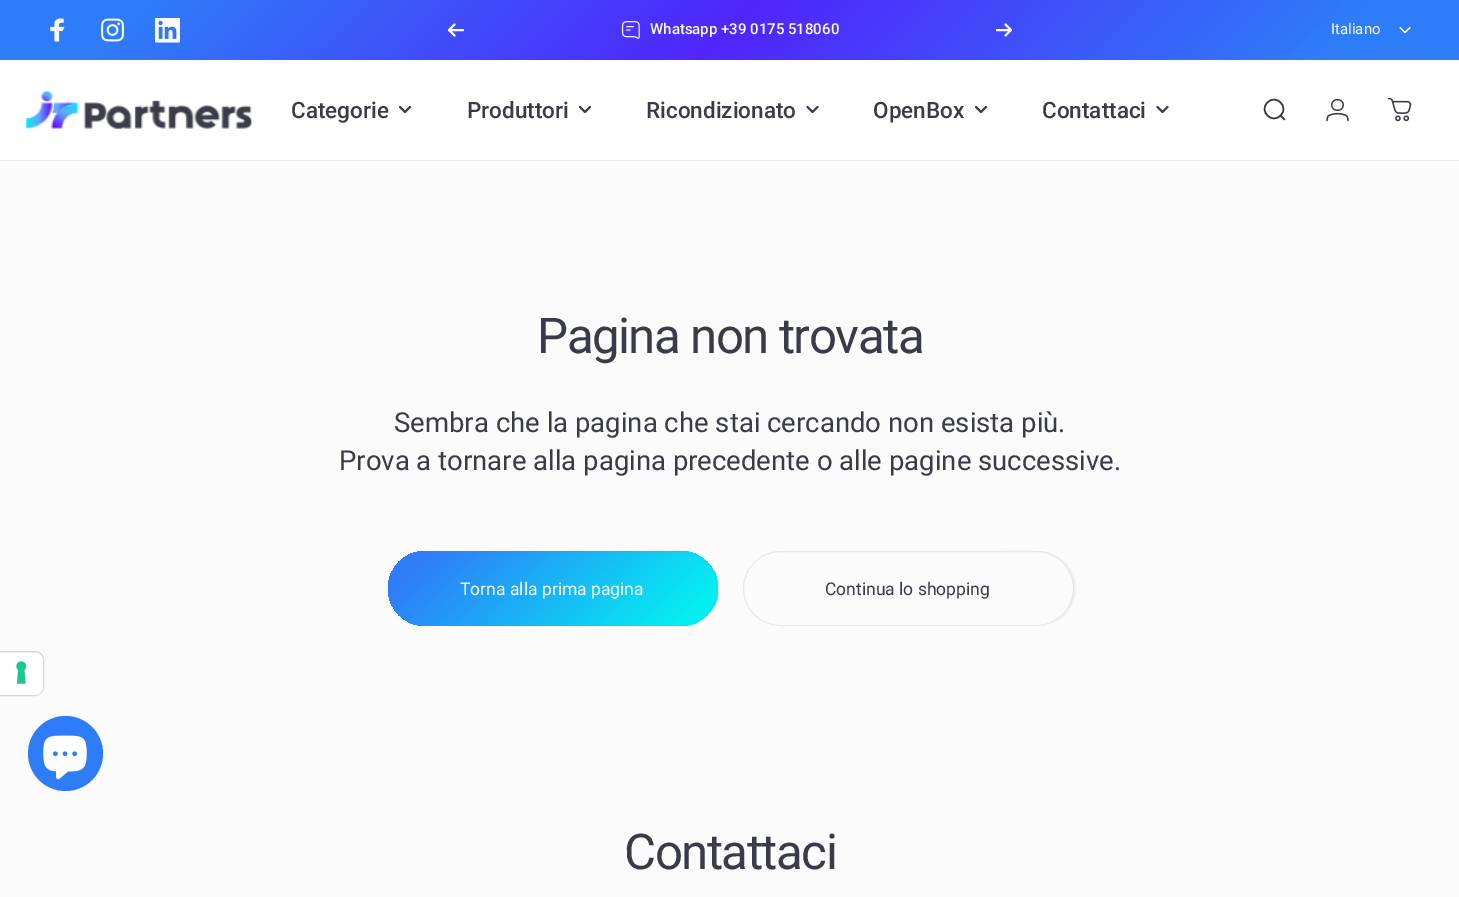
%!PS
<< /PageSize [1459 897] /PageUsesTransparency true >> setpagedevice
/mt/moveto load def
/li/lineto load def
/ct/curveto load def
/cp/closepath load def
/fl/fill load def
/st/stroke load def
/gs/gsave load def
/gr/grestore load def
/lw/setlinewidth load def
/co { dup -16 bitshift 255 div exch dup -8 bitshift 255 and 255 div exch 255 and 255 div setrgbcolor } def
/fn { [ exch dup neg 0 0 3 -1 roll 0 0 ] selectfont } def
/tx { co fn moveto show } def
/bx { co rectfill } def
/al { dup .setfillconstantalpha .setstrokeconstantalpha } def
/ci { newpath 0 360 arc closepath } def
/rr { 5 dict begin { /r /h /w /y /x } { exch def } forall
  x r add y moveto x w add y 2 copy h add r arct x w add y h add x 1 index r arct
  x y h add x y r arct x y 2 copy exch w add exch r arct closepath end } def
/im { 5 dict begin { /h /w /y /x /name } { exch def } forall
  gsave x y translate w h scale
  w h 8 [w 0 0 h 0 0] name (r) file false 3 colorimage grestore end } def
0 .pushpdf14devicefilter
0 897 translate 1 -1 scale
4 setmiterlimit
0 0 1459 897 16#FBFBFB bx
gs 0 0 mt 1459 0 li 1459 23 li 0 23 li cp clip newpath
<< /ShadingType 2 /ColorSpace /DeviceRGB /Coords [350 -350 1110 410] /Extend [true true] /Function << /FunctionType 3 /Domain [0 1] /Functions [<< /FunctionType 2 /Domain [0 1] /C0 [.184 .486 .973] /C1 [.184 .486 .973] /N 1 >> << /FunctionType 2 /Domain [0 1] /C0 [.184 .486 .973] /C1 [.314 .145 .992] /N 1 >> << /FunctionType 2 /Domain [0 1] /C0 [.314 .145 .992] /C1 [.184 .486 .973] /N 1 >> << /FunctionType 2 /Domain [0 1] /C0 [.184 .486 .973] /C1 [.184 .486 .973] /N 1 >>] /Bounds [.1 .5 .9] /Encode [0 1 0 1 0 1 0 1] >> >> shfill gr
gs 23 0 mt 1437 0 li 1449.5 0 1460 10.5 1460 23 ct 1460 60 li 0 60 li 0 23 li 0 10.5 10.5 0 23 0 ct cp clip newpath
<< /ShadingType 2 /ColorSpace /DeviceRGB /Coords [350 -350 1110 410] /Extend [true true] /Function << /FunctionType 3 /Domain [0 1] /Functions [<< /FunctionType 2 /Domain [0 1] /C0 [.184 .486 .973] /C1 [.184 .486 .973] /N 1 >> << /FunctionType 2 /Domain [0 1] /C0 [.184 .486 .973] /C1 [.314 .145 .992] /N 1 >> << /FunctionType 2 /Domain [0 1] /C0 [.314 .145 .992] /C1 [.184 .486 .973] /N 1 >> << /FunctionType 2 /Domain [0 1] /C0 [.184 .486 .973] /C1 [.184 .486 .973] /N 1 >>] /Bounds [.1 .5 .9] /Encode [0 1 0 1 0 1 0 1] >> >> shfill gr
(media/1.raw) 50 18 15 24 im
(media/2.raw) 101 18 23 24 im
(media/3.raw) 155 18 25 25 im
16#FAFAFA co
2 lw
1 setlinecap
1 setlinejoin
454.5 24.5 mt 449 30 li 449 30 mt 454.5 35.5 li 449 30 mt 463 30 li st
(media/4.raw) 621 21 19 18 im
997 30 mt 1011 30 li 1011 30 mt 1005.5 24.5 li 1011 30 mt 1005.5 35.5 li st
1.2 lw
1400 27.5 mt 1405 32.5 li 1410 27.5 li st
0 60 1459 100 16#FFFFFF bx
(media/5.raw) 26 91 226 39 im
16#3A3B49 co
1.9 lw
400 107 mt 405 112 li 410 107 li st
580 107 mt 585 112 li 590 107 li st
807.5 107 mt 812.5 112 li 817.5 107 li st
976 107 mt 981 112 li 986 107 li st
1157.5 107 mt 1162.5 112 li 1167.5 107 li st
1.6 lw
0 setlinejoin
1284.5 119.5 mt 1280.5 115.5 li 1280.5 115.5 mt 1289.5 107 1276 93.5 1267.5 102.5 ct 1258.5 111 1272 124.5 1280.5 115.5 ct cp st
(media/6.raw) 1326 99 23 23 im
(media/7.raw) 1388 98 24 24 im
16#D5D5D5 co
1 lw
0 setlinecap
-.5 651.5 mt 35 651.5 li 39.5 651.5 43.5 655.5 43.5 660 ct 43.5 687 li 43.5 691.5 39.5 695.5 35 695.5 ct -.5 695.5 li cp st
16#FFFFFF co
0 653 mt 35 653 li 39.5 653 43 656.5 43 661 ct 43 687 li 43 691.5 39.5 695 35 695 ct 0 695 li cp fl
(media/8.raw) 16 661 11 23 im
0 160 1459 1 16#E8E8E9 bx
16#F1F1F2 co
428 551 mt 422 551 li 638 551 li 645 551 680 548 695 554 ct 730 569 722 621 685 626 ct 705 625 720 608 720 588 ct 720 568 703 551 682 551 ct cp fl
gs 388 551 330 75 37.5 rr clip newpath
<< /ShadingType 2 /ColorSpace /DeviceRGB /Coords [451 488 654 690] /Extend [true true] /Function << /FunctionType 3 /Domain [0 1] /Functions [<< /FunctionType 2 /Domain [0 1] /C0 [.184 .486 .973] /C1 [.184 .486 .973] /N 1 >> << /FunctionType 2 /Domain [0 1] /C0 [.184 .486 .973] /C1 [.016 .933 .945] /N 1 >> << /FunctionType 2 /Domain [0 1] /C0 [.016 .933 .945] /C1 [.016 .933 .945] /N 1 >>] /Bounds [.1 .9] /Encode [0 1 0 1 0 1] >> >> shfill gr
0.1 al
16#2F7CF8 co
388.5 551.5 329 74 37 rr st
1 al
16#F1F1F2 co
782 551 mt 777 551 li 994 551 li 1001 551 1036 548 1051 554 ct 1086 569 1079 621 1042 626 ct 1061 624 1076 608 1076 588 ct 1076 568 1059 551 1038 551 ct cp fl
0.1 al
16#3A3B49 co
743.5 551.5 330 74 37 rr st
1 al
16#2F7CF8 co
65.5 753.5 37.5 ci fl
(media/9.raw) 43 735 44 45 im
(Whatsapp +39 0175 518060) 650 34 /Roboto-Medium 15 16#FAFAFA tx
(Italiano) 1331 34 /Roboto-Regular 15 16#FAFAFA tx
(Categorie) 291 118 /Roboto-Medium 22.5 16#3A3B49 tx
(Produttori) 467 118 /Roboto-Medium 22.5 16#3A3B49 tx
(Ricondizionato) 646 118 /Roboto-Medium 22.5 16#3A3B49 tx
(OpenBox) 873 118 /Roboto-Medium 22.5 16#3A3B49 tx
(Contattaci) 1042 118 /Roboto-Medium 22.5 16#3A3B49 tx
/Roboto-Regular 49.25 fn
537 353 mt -1.5 0 (Pagina non trovata) ashow
(Sembra che la pagina che stai cercando non esista più.) 394 432 /Roboto-Regular 27.5 16#3A3B49 tx
(Prova a tornare alla pagina precedente o alle pagine successive.) 339 470 /Roboto-Regular 27.5 16#3A3B49 tx
(Torna alla prima pagina) 460 595 /Roboto-Regular 17.5 16#FAFAFA tx
(Continua lo shopping) 825 595 /Roboto-Regular 17.5 16#3A3B49 tx
/Roboto-Regular 49.25 fn
624 869 mt -1.5 0 (Contattaci) ashow
.poppdf14devicefilter showpage
